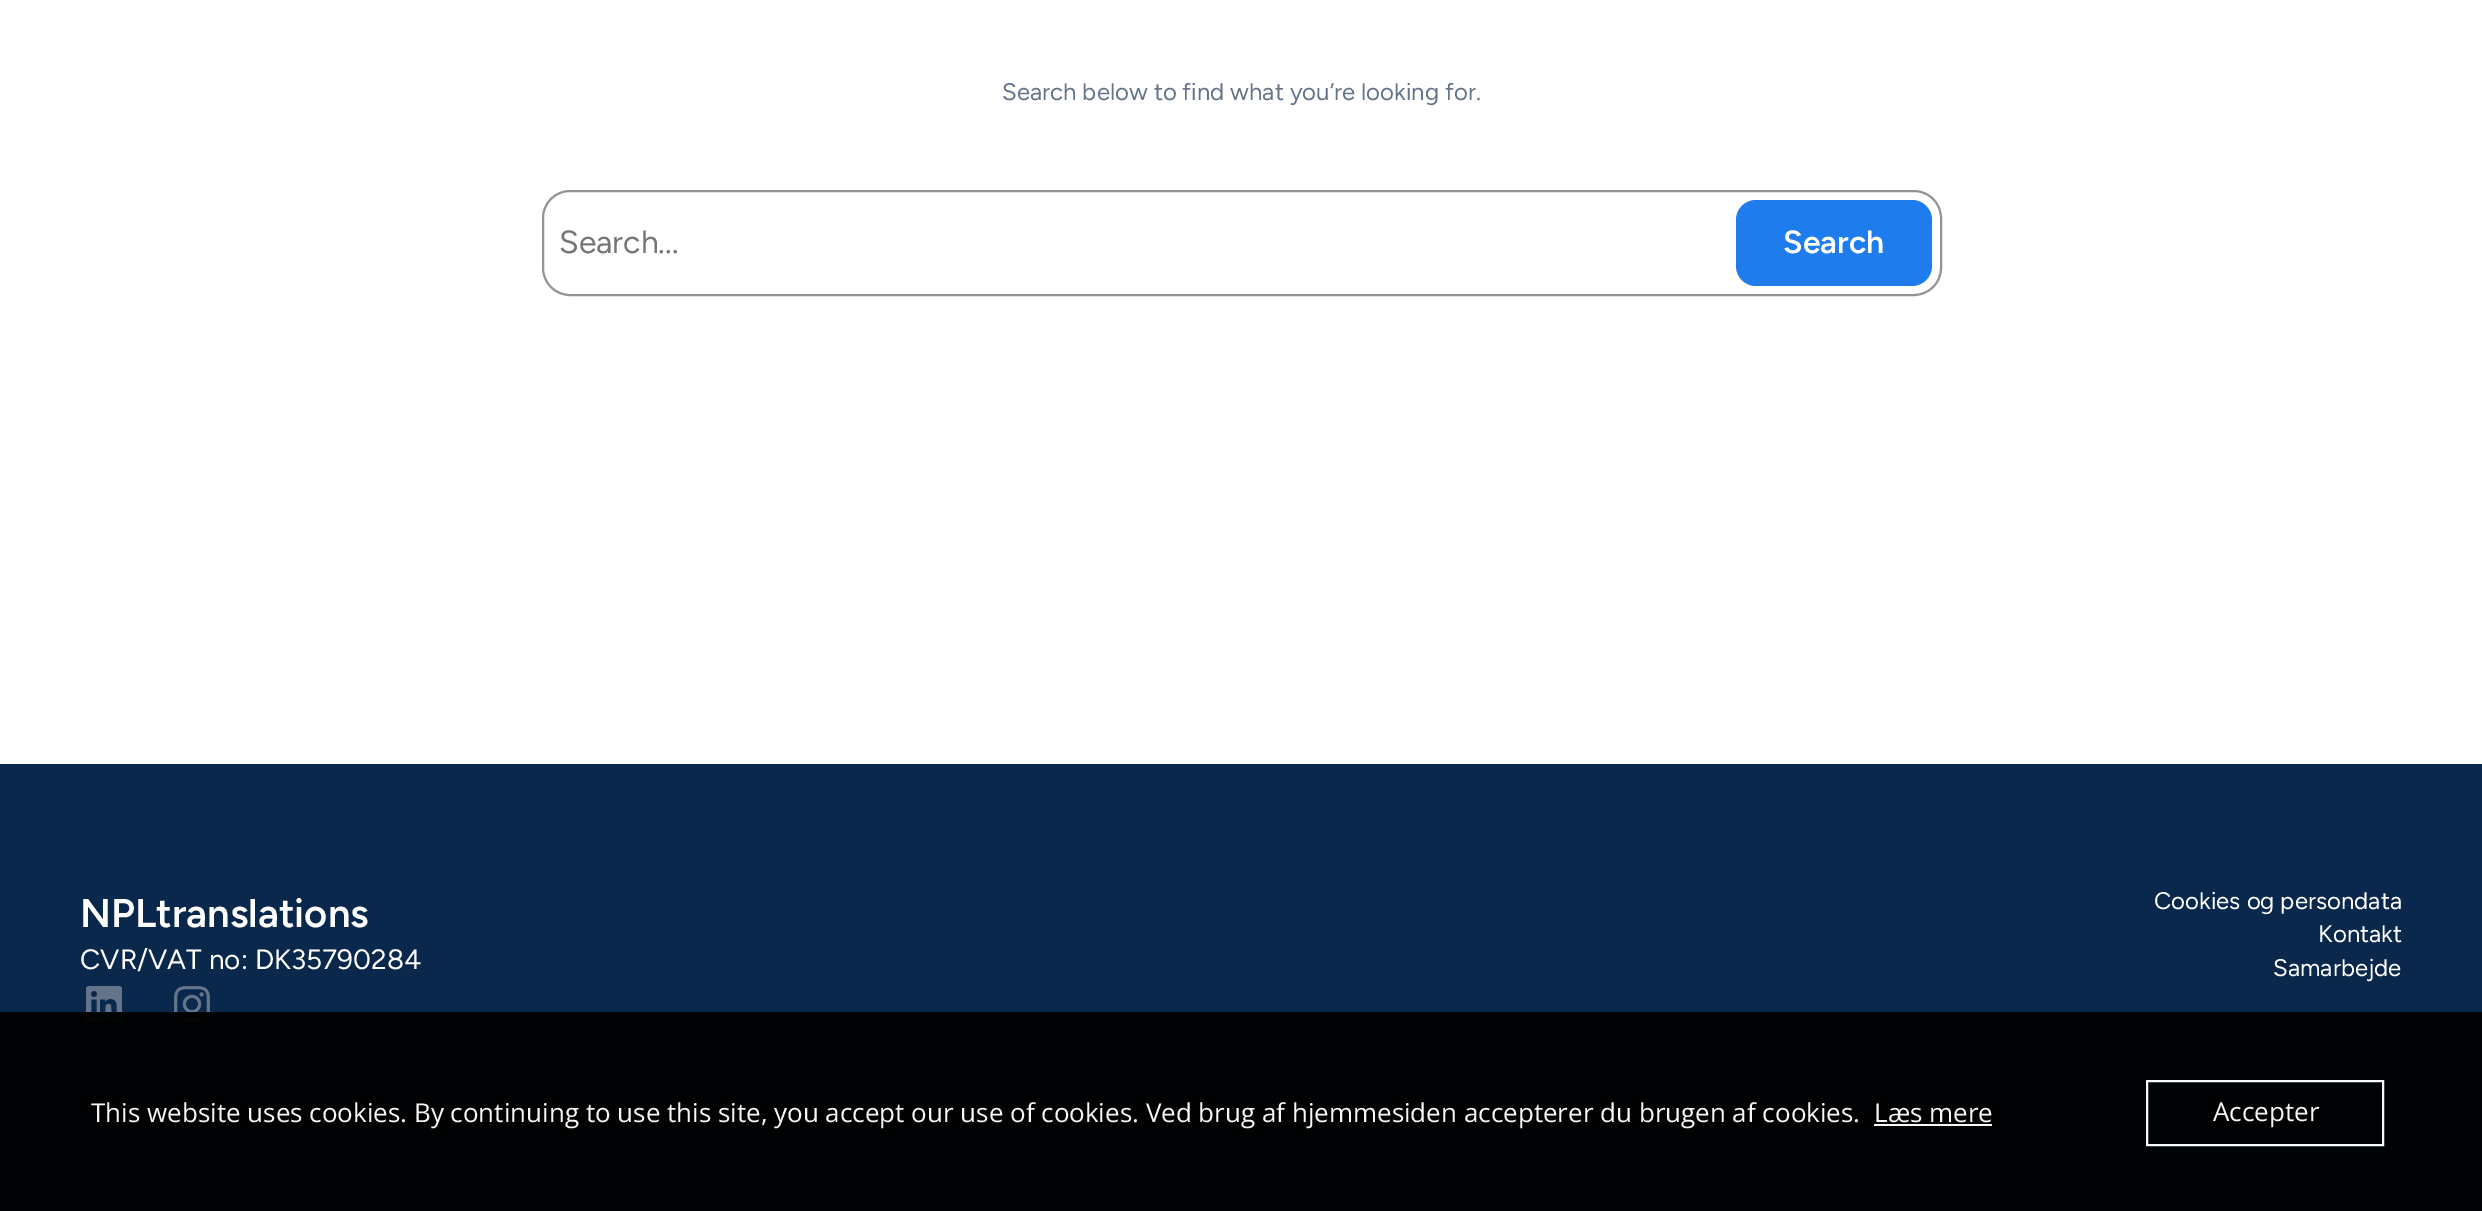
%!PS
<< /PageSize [2482 1211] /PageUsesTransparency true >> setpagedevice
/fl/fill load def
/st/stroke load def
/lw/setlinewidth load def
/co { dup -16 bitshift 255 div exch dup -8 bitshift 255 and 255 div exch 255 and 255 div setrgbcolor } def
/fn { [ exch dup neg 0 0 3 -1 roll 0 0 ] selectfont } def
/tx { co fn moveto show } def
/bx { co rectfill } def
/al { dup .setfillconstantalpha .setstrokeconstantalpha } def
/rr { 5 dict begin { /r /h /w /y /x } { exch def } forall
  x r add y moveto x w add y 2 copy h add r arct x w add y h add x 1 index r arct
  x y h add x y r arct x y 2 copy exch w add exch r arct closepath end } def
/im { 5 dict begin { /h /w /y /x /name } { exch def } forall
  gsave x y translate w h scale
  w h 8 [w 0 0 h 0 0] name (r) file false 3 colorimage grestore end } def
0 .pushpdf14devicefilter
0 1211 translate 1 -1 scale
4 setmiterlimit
0 0 2482 1211 16#FFFFFF bx
16#949494 co
2 lw
543 191 1398 104 27 rr st
16#1F7CEC co
1736 200 196 86 20 rr fl
0 764 2482 447 16#0A284B bx
(media/1.raw) 86 986 36 36 im
(media/2.raw) 174 986 36 36 im
0.97 al
0 1012 2482 199 16#000000 bx
1 al
1874 1124 118 2 16#F8F9FA bx
2147 1081 236 64 rectstroke
(Search below to find what you’re looking for.) 1002 100 /Figtree-Regular 24 16#64748B tx
(Search...) 559 253 /Figtree-Regular 32 16#757575 tx
(Search) 1783 253 /Figtree-SemiBold 32 16#FFFFFF tx
(NPLtranslations) 80 927 /Figtree-SemiBold 40 16#FFFFFF tx
(CVR/VAT no: DK35790284) 80 969 /Figtree-Regular 28 16#FFFFFF tx
(Cookies og persondata) 2154 909 /Figtree-Regular 24 16#FFFFFF tx
(Kontakt) 2318 942 /Figtree-Regular 24 16#FFFFFF tx
(Samarbejde) 2273 976 /Figtree-Regular 24 16#FFFFFF tx
(This website uses cookies. By continuing to use this site, you accept our use of cookies. Ved brug af hjemmesiden accepterer du brugen af cookies.) 91 1122 /OpenSans-Regular 26 16#F7F7F7 tx
(Læs mere) 1874 1122 /OpenSans-Regular 26 16#F7F7F7 tx
(Accepter) 2213 1121 /OpenSans-Regular 26 16#F7F7F7 tx
.poppdf14devicefilter showpage
